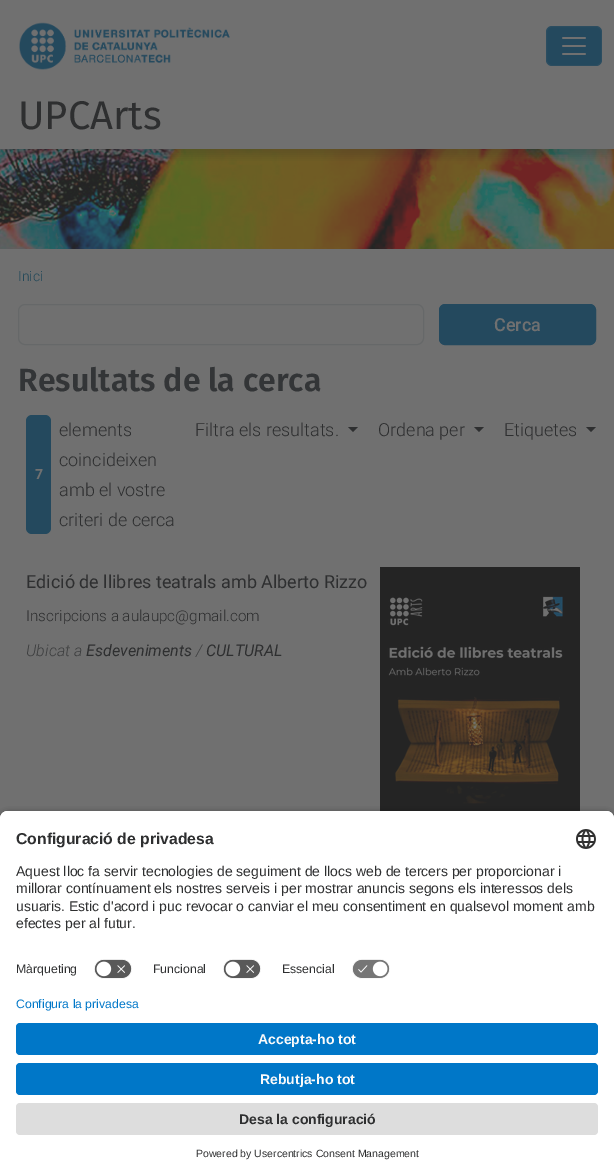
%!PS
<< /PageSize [614 1175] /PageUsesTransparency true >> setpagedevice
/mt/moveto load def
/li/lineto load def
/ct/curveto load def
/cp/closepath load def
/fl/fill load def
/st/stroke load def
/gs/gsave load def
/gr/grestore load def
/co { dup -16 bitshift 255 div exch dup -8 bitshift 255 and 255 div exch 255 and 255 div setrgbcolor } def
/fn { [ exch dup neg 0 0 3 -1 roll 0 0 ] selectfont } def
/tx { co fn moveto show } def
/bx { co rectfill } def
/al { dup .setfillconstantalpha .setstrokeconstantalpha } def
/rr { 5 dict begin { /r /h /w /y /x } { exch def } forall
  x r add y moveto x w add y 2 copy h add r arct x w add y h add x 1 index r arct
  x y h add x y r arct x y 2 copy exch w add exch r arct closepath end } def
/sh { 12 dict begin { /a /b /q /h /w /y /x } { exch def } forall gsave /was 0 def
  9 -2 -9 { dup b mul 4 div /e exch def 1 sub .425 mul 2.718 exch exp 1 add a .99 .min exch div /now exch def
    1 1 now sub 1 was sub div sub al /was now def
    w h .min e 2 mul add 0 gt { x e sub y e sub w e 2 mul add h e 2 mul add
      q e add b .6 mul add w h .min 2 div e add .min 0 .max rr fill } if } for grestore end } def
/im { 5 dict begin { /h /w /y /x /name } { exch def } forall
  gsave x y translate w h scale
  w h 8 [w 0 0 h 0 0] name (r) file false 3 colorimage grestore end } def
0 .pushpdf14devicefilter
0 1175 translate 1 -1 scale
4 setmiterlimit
0 0 614 1175 16#707070 bx
(media/1.raw) 19 22 211 48 im
16#24495E co
546 26 56 40 6 rr fl
0.1 al
16#707070 co
546.5 26.5 55 39 5.5 rr st
1 al
(media/2.raw) 562 37 24 18 im
(media/3.raw) 0 149 614 100 im
gs
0 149 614 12 rectclip
16#242424 co
0 99 614 57 0 4 .2 sh
gr
16#666869 co
18.5 304.5 405 40 6.5 rr st
16#24495E co
439.5 304.5 156 40 5.5 rr gs fl gr
st
26 415 25 119 6 rr fl
16#2E2F30 co
348 427 mt 358 427 li 353 432 li cp fl
474 427 mt 484 427 li 479 432 li cp fl
586 427 mt 596 427 li 591 432 li cp fl
(media/4.raw) 380 567 200 244 im
16#000000 co
0 814 614 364 8 3.5 .8 sh
16#FFFFFF co
8 811 mt 606 811 li 610.5 811 614 814.5 614 819 ct 614 997 li 0 997 li 0 819 li 0 814.5 3.5 811 8 811 ct cp fl
8 811 mt 606 811 li 610.5 811 614 814.5 614 819 ct 614 953 li 0 953 li 0 819 li 0 814.5 3.5 811 8 811 ct cp fl
(media/5.raw) 576 829 20 20 im
(media/6.raw) 94 959 38 20 im
(media/6.raw) 223 959 38 20 im
(media/7.raw) 352 959 38 20 im
0 997 614 178 16#FFFFFF bx
16#0077C8 co
16 1023 582 32 4 rr fl
16 1063 582 32 4 rr fl
16#DDDDDD co
16 1103 582 32 4 rr fl
(UPCArts) 18 129 /FiraSans-Regular 40 16#2E2F30 tx
(Inici) 18 281 /Roboto-Light 14 16#244959 tx
(Cerca) 494 331 /Roboto-Medium 18 16#707070 tx
(Resultats de la cerca) 18 391 /FiraSans-SemiBold 32 16#333537 tx
(elements) 59 436 /Roboto-Light 18 16#2E2F30 tx
(coincideixen) 59 466 /Roboto-Light 18 16#2E2F30 tx
(7) 35 479 /Roboto-Bold 14 16#707070 tx
(amb el vostre) 59 496 /Roboto-Light 18 16#2E2F30 tx
(criteri de cerca) 59 526 /Roboto-Light 18 16#2E2F30 tx
(Filtra els resultats.) 195 436 /Roboto-Light 18 16#2E2F30 tx
(Ordena per) 378 436 /Roboto-Light 18 16#2E2F30 tx
(Etiquetes) 504 436 /Roboto-Light 18 16#2E2F30 tx
(Edició de llibres teatrals amb Alberto Rizzo) 26 588 /Roboto-Regular 18 16#2E2F30 tx
(Inscripcions a aulaupc@gmail.com) 26 621 /Roboto-Light 15.25 16#2E2F30 tx
(Ubicat a) 26 656 /Roboto-LightItalic 16 16#3E3F40 tx
(Esdeveniments) 86 656 /Roboto-Italic 16 16#2E2F30 tx
(/) 196 656 /Roboto-LightItalic 16 16#3E3F40 tx
(CULTURAL) 206 656 /Roboto-Italic 16 16#2E2F30 tx
(Configuració de privadesa) 16 844 /LiberationSans-Bold 15.75 16#2E2F30 tx
(Aquest lloc fa servir tecnologies de seguiment de llocs web de tercers per proporcionar i) 16 876 /LiberationSans-Regular 14 16#2E2F30 tx
(millorar contínuament els nostres serveis i per mostrar anuncis segons els interessos dels) 16 893 /LiberationSans-Regular 14 16#2E2F30 tx
(usuaris. Estic d'acord i puc revocar o canviar el meu consentiment en qualsevol moment amb) 16 911 /LiberationSans-Regular 14 16#2E2F30 tx
(efectes per al futur.) 16 928 /LiberationSans-Regular 14 16#2E2F30 tx
(Màrqueting) 16 973 /LiberationSans-Regular 12.25 16#2E2F30 tx
(Funcional) 153 973 /LiberationSans-Regular 12.25 16#2E2F30 tx
(Essencial) 282 973 /LiberationSans-Regular 12.25 16#2E2F30 tx
(Configura la privadesa) 16 1008 /LiberationSans-Regular 12.25 16#0077C8 tx
(Accepta-ho tot) 258 1044 /LiberationSans-Bold 14 16#FAFAFA tx
(Rebutja-ho tot) 260 1084 /LiberationSans-Bold 14 16#FAFAFA tx
(Desa la configuració) 239 1124 /LiberationSans-Bold 14 16#2E2F30 tx
(Powered by Usercentrics Consent Management) 196 1157 /LiberationSans-Regular 10.5 16#2E2F30 tx
.poppdf14devicefilter showpage
